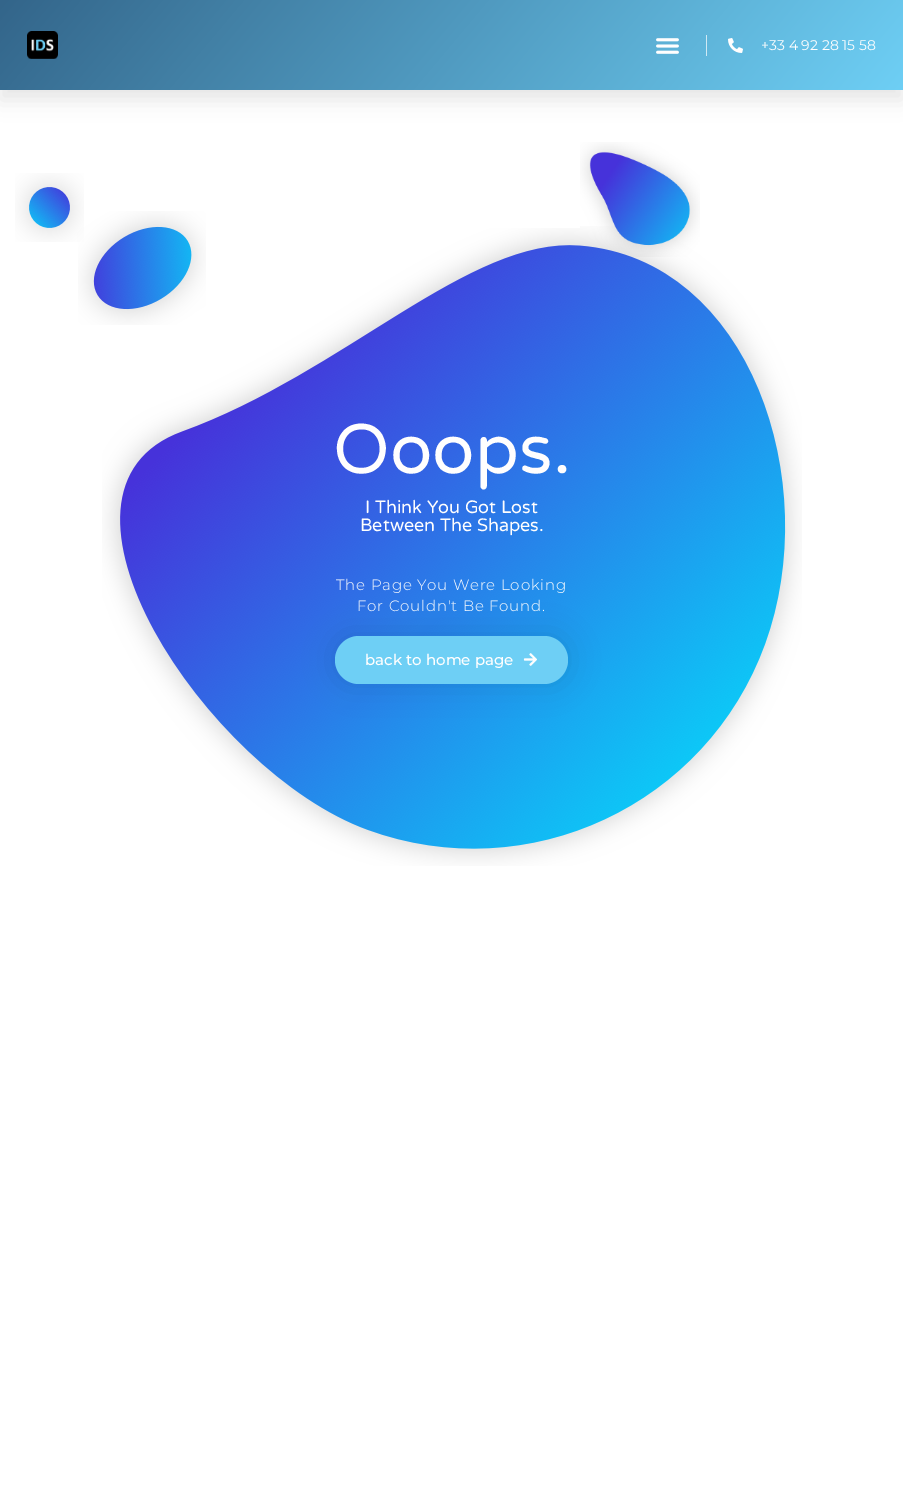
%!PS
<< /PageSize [903 1489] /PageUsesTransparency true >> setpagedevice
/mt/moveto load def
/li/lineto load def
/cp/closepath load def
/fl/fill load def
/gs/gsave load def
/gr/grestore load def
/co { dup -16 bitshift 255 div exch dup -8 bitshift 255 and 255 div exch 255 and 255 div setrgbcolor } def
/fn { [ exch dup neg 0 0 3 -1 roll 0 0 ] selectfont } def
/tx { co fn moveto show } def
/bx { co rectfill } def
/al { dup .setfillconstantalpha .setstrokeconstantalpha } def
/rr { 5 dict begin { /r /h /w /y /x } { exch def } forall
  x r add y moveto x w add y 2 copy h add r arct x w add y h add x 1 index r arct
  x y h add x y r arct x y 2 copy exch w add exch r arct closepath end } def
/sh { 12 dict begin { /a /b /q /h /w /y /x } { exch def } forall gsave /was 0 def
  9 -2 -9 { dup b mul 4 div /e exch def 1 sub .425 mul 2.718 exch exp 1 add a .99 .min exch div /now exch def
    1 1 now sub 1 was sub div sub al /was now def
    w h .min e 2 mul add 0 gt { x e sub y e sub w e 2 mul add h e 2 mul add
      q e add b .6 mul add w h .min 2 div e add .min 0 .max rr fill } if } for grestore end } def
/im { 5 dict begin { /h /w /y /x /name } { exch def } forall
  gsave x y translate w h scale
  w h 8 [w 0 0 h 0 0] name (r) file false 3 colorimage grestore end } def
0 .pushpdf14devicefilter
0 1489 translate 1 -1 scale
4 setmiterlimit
0 0 903 1489 16#FFFFFF bx
16#000000 co
0 10 903 90 0 10 .1 sh
gs 0 0 mt 903 0 li 903 90 li 0 90 li cp clip newpath
<< /ShadingType 2 /ColorSpace /DeviceRGB /Coords [164 -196 739 286] /Extend [true true] /Function << /FunctionType 2 /Domain [0 1] /C0 [.2 .396 .541] /C1 [.431 .812 .961] /N 1 >> >> shfill gr
(media/1.raw) 27 31 31 28 im
(media/2.raw) 656 38 23 16 im
706 35 1 21 16#CFE9F4 bx
(media/3.raw) 728 38 15 15 im
(media/7.raw) 102 228 700 638 im
(media/5.raw) 78 211 128 114 im
(media/4.raw) 15 173 69 69 im
(media/6.raw) 580 142 120 115 im
16#000000 co
335 636 233 48 24 15 .1 sh
16#6ECFF5 co
335 636 233 48 24 rr fl
(media/8.raw) 523 653 14 13 im
(+33 4 92 28 15 58) 761 50 /Montserrat-Regular 14 16#FFFEFE tx
(Ooops.) 333 473 /VarelaRound-Regular 70 16#FFFEFE tx
(I Think You Got Lost) 365 513 /VarelaRound-Regular 18 16#FFFEFE tx
(Between The Shapes.) 360 531 /VarelaRound-Regular 18 16#FFFEFE tx
/Montserrat-Light 15 fn
336 590 mt .8 0 (The Page You Were Looking) ashow
357 611 mt .8 0 (For Couldn't Be Found.) ashow
(back to home page) 365 665 /Montserrat-Medium 15 16#FFFEFE tx
.poppdf14devicefilter showpage
